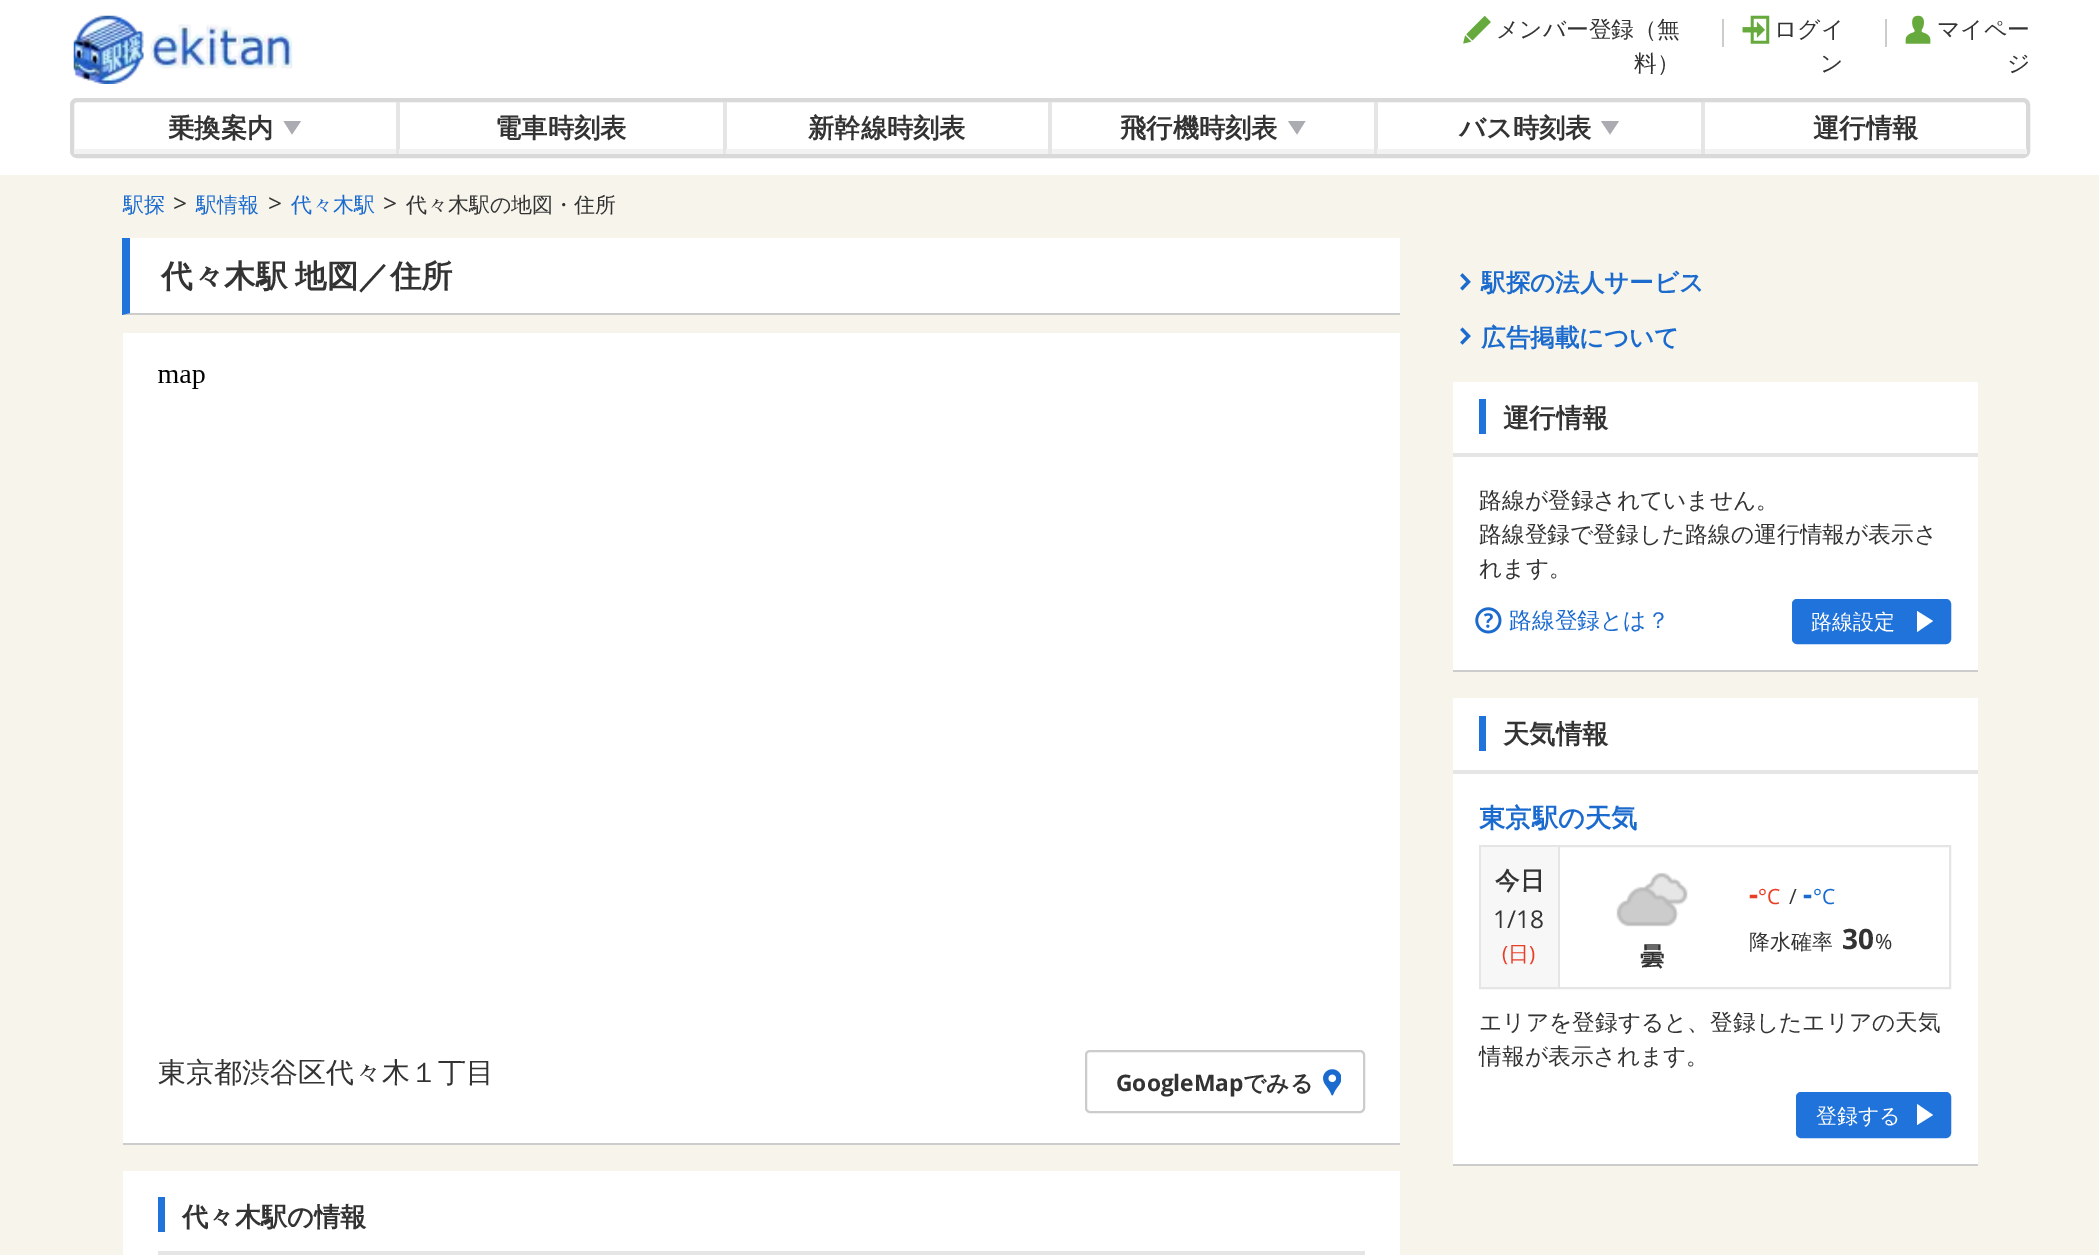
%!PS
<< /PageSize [2099 1255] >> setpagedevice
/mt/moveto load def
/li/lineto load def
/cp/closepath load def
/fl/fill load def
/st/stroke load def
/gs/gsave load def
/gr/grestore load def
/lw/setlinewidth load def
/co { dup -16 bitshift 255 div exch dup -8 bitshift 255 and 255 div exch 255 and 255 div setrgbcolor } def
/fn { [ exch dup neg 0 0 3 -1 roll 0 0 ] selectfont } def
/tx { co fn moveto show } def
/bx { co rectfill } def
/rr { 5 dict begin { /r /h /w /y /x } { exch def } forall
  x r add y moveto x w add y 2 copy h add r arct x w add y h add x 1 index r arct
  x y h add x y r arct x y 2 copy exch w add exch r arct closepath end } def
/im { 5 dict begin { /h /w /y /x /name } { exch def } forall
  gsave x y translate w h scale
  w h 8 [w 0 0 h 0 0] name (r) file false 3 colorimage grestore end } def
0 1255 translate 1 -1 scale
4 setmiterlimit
0 0 2099 1255 16#FFFFFF bx
(media/1.raw) 73 15 220 69 im
(media/2.raw) 1463 16 28 28 im
1722 19 2 28 16#CCCCCC bx
(media/3.raw) 1742 15 28 29 im
1885 19 2 28 16#CCCCCC bx
(media/4.raw) 1905 15 26 29 im
16#D9D9D9 co
4 lw
72 100 1956 56 5 rr st
396 102 4 52 16#E5E5E5 bx
74 149 322 5 16#F2F2F2 bx
16#AAACB2 co
301 121 mt 292 134.5 li 283.5 121 li cp fl
723 102 4 52 16#E5E5E5 bx
399 149 324 5 16#F2F2F2 bx
1048 102 4 52 16#E5E5E5 bx
726 149 322 5 16#F2F2F2 bx
1374 102 4 52 16#E5E5E5 bx
1052 149 322 5 16#F2F2F2 bx
16#AAACB2 co
1305.5 121 mt 1297 134.5 li 1288 121 li cp fl
1701 102 4 52 16#E5E5E5 bx
1377 149 324 5 16#F2F2F2 bx
16#AAACB2 co
1619 121 mt 1610 134.5 li 1601 121 li cp fl
1705 149 322 5 16#F2F2F2 bx
0 175 2099 1080 16#F6F4EB bx
123 238 1277 77 16#FFFFFF bx
16#CCCCCC co
1400 315 mt 122 315 li 130 313 li 1400 313 li cp fl
16#2073DB co
122 315 mt 122 238 li 130 238 li 130 313 li cp fl
123 333 1277 810 16#FFFFFF bx
123 1143 1277 2 16#CCCCCC bx
(media/5.raw) 158 370 47 19 im
2 lw
1086 1051 278 61 4 rr st
(media/6.raw) 1323 1069 18 27 im
123 1171 1277 84 16#FFFFFF bx
158 1251 1207 4 16#E5E5E5 bx
158 1197 7 35 16#2073DB bx
(media/7.raw) 1460 273 11 18 im
(media/8.raw) 1460 327 11 18 im
1453 382 525 71 16#FFFFFF bx
1453 453 525 4 16#E5E5E5 bx
1479 399 7 35 16#2073DB bx
1453 457 525 213 16#FFFFFF bx
1453 670 525 2 16#CCCCCC bx
(media/9.raw) 1475 607 27 27 im
16#2073DB co
1793 600 157 43 4 rr gs fl gr
st
16#FFFFFF co
1917 611 mt 1933 621 li 1917 632 li cp fl
1453 698 525 72 16#FFFFFF bx
1453 770 525 4 16#E5E5E5 bx
1479 716 7 35 16#2073DB bx
1453 774 525 390 16#FFFFFF bx
1453 1164 525 2 16#CCCCCC bx
16#E5E5E5 co
1480 846 470 142 rectstroke
1481 847 77 140 16#F7F7F7 bx
1558 847 2 140 16#E5E5E5 bx
(media/10.raw) 1616 872 72 55 im
16#2073DB co
1797 1093 153 44 4 rr gs fl gr
st
16#FFFFFF co
1917 1104 mt 1933 1115 li 1917 1125 li cp fl
(メンバー登録（無) 1496 37 /WenQuanYiZenHei-Medium 22.75 16#333333 tx
(料）) 1634 71 /WenQuanYiZenHei-Medium 22.75 16#333333 tx
(ログイ) 1774 37 /WenQuanYiZenHei-Medium 22.75 16#333333 tx
(ン) 1820 71 /WenQuanYiZenHei-Medium 22.75 16#333333 tx
(マイペー) 1937 37 /WenQuanYiZenHei-Medium 22.75 16#333333 tx
(ジ) 2007 71 /WenQuanYiZenHei-Medium 22.75 16#333333 tx
(乗換案内) 168 137 /WenQuanYiZenHei-Bold 26.25 16#333333 tx
(電車時刻表) 495 137 /WenQuanYiZenHei-Bold 26.25 16#333333 tx
(新幹線時刻表) 808 137 /WenQuanYiZenHei-Bold 26.25 16#333333 tx
(飛行機時刻表) 1120 137 /WenQuanYiZenHei-Bold 26.25 16#333333 tx
(バス時刻表) 1459 137 /WenQuanYiZenHei-Bold 26.25 16#333333 tx
(運行情報) 1813 137 /WenQuanYiZenHei-Bold 26.25 16#333333 tx
(駅探) 123 212 /WenQuanYiZenHei-Medium 21 16#1B6BCF tx
(>) 173 212 /OpenSans-Regular 24.5 16#333333 tx
(駅情報) 196 212 /WenQuanYiZenHei-Medium 21 16#1B6BCF tx
(>) 268 212 /OpenSans-Regular 24.5 16#333333 tx
(代々木駅) 291 212 /WenQuanYiZenHei-Medium 21 16#1B6BCF tx
(>) 383 212 /OpenSans-Regular 24.5 16#333333 tx
(代々木駅の地図・住所) 406 212 /WenQuanYiZenHei-Medium 21 16#333333 tx
/WenQuanYiZenHei-Bold 31.5 fn
161 287 mt -1 0 32 (代々木駅 地図／住所) widthshow
(東京都渋谷区代々木１丁目) 158 1082 /WenQuanYiZenHei-Medium 28 16#333333 tx
(GoogleMap) 1116 1091 /OpenSans-Bold 22.75 16#333333 tx
(でみる) 1243 1091 /WenQuanYiZenHei-Bold 22.75 16#333333 tx
(代々木駅の情報) 182 1226 /WenQuanYiZenHei-Bold 26.25 16#333333 tx
(駅探の法人サービス) 1481 291 /WenQuanYiZenHei-Bold 24.5 16#1B6BCF tx
(広告掲載について) 1481 346 /WenQuanYiZenHei-Bold 24.5 16#1B6BCF tx
(運行情報) 1503 427 /WenQuanYiZenHei-Bold 26.25 16#333333 tx
(路線が登録されていません。) 1479 508 /WenQuanYiZenHei-Medium 22.75 16#333333 tx
(路線登録で登録した路線の運行情報が表示さ) 1479 542 /WenQuanYiZenHei-Medium 22.75 16#333333 tx
(れます。) 1479 576 /WenQuanYiZenHei-Medium 22.75 16#333333 tx
(路線登録とは？) 1509 628 /WenQuanYiZenHei-Medium 22.75 16#1B6BCF tx
(路線設定) 1811 629 /WenQuanYiZenHei-Medium 21 16#FFFFFF tx
(天気情報) 1503 743 /WenQuanYiZenHei-Bold 26.25 16#333333 tx
(東京駅の天気) 1479 827 /WenQuanYiZenHei-Bold 26.25 16#1B6BCF tx
(今日) 1495 889 /WenQuanYiZenHei-Bold 24.5 16#333333 tx
(1/18) 1493 928 /OpenSans-Regular 24.5 16#333333 tx
(\() 1502 961 /OpenSans-Regular 21 16#E93E26 tx
(日) 1508 961 /WenQuanYiZenHei-Medium 21 16#E93E26 tx
(\)) 1529 961 /OpenSans-Regular 21 16#E93E26 tx
(-) 1749 904 /OpenSans-Bold 28 16#E93E26 tx
(°C) 1758 904 /OpenSans-Regular 21 16#E93E26 tx
(/) 1789 904 /OpenSans-Regular 21 16#333333 tx
(-) 1803 904 /OpenSans-Bold 28 16#1B6BCF tx
(°C) 1813 904 /OpenSans-Regular 21 16#1B6BCF tx
(降水確率) 1749 949 /WenQuanYiZenHei-Medium 21 16#333333 tx
(30) 1842 949 /OpenSans-Bold 28 16#333333 tx
(%) 1875 949 /OpenSans-Regular 21 16#333333 tx
(曇) 1640 965 /WenQuanYiZenHei-Bold 24.5 16#333333 tx
(エリアを登録すると、登録したエリアの天気) 1479 1030 /WenQuanYiZenHei-Medium 22.75 16#333333 tx
(情報が表示されます。) 1479 1064 /WenQuanYiZenHei-Medium 22.75 16#333333 tx
(登録する) 1816 1123 /WenQuanYiZenHei-Medium 21 16#FFFFFF tx
showpage
